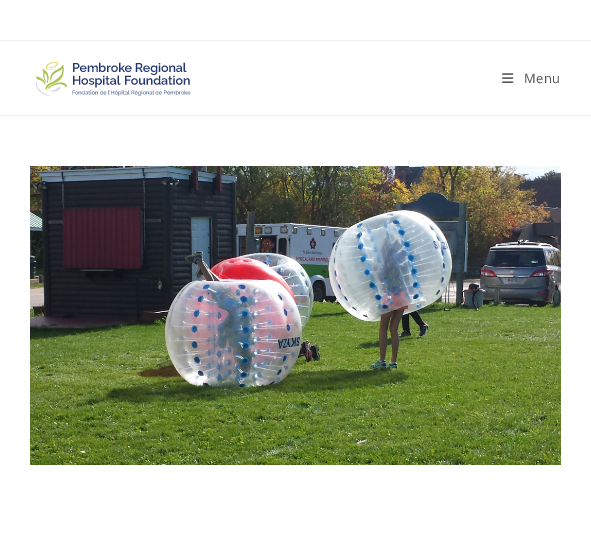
%!PS
<< /PageSize [591 552] >> setpagedevice
/mt/moveto load def
/co { dup -16 bitshift 255 div exch dup -8 bitshift 255 and 255 div exch 255 and 255 div setrgbcolor } def
/fn { [ exch dup neg 0 0 3 -1 roll 0 0 ] selectfont } def
/bx { co rectfill } def
/im { 5 dict begin { /h /w /y /x /name } { exch def } forall
  gsave x y translate w h scale
  w h 8 [w 0 0 h 0 0] name (r) file false 3 colorimage grestore end } def
0 552 translate 1 -1 scale
4 setmiterlimit
0 0 591 552 16#FFFFFF bx
0 40 591 1 16#F1F1F1 bx
0 115 591 1 16#F1F1F1 bx
(media/1.raw) 35 61 156 35 im
(media/2.raw) 502 73 12 10 im
(media/3.raw) 30 166 531 299 im
/OpenSans-Regular 13 fn
16#555555 co
524 83 mt .5 0 (Menu) ashow
showpage
